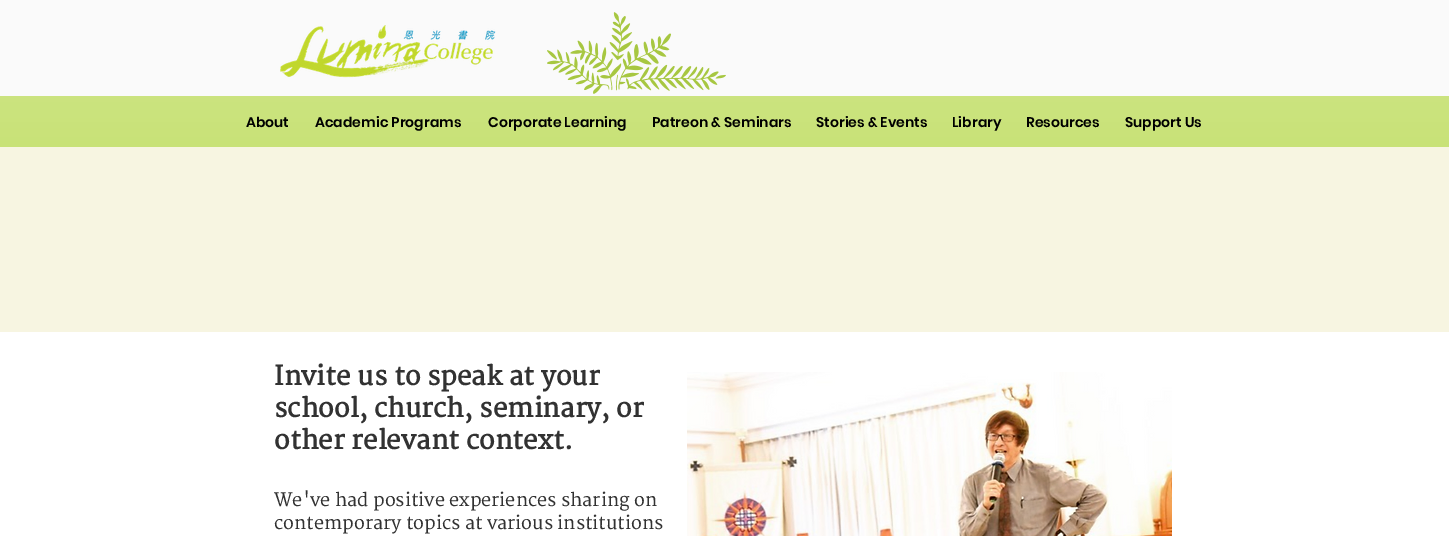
%!PS
<< /PageSize [1449 536] >> setpagedevice
/co { dup -16 bitshift 255 div exch dup -8 bitshift 255 and 255 div exch 255 and 255 div setrgbcolor } def
/fn { [ exch dup neg 0 0 3 -1 roll 0 0 ] selectfont } def
/tx { co fn moveto show } def
/bx { co rectfill } def
/im { 5 dict begin { /h /w /y /x /name } { exch def } forall
  gsave x y translate w h scale
  w h 8 [w 0 0 h 0 0] name (r) file false 3 colorimage grestore end } def
0 536 translate 1 -1 scale
4 setmiterlimit
0 0 1449 536 16#FFFFFF bx
0 96 1449 51 16#C1DE66 bx
(media/1.raw) 0 96 1449 51 im
0 0 1449 96 16#FAFAFA bx
(media/2.raw) 280 25 216 53 im
(media/3.raw) 547 12 179 82 im
0 147 1449 185 16#F7F5E1 bx
(media/4.raw) 687 372 485 164 im
(About) 246 127 /Poppins-SemiBold 14 16#000000 tx
(Academic Programs) 315 127 /Poppins-SemiBold 14 16#000000 tx
(Corporate Learning) 488 127 /Poppins-SemiBold 14 16#000000 tx
(Patreon & Seminars) 652 127 /Poppins-SemiBold 14 16#000000 tx
(Stories & Events) 816 127 /Poppins-SemiBold 14 16#000000 tx
(Library) 952 127 /Poppins-SemiBold 14 16#000000 tx
(Resources) 1026 127 /Poppins-SemiBold 14 16#000000 tx
(Support Us) 1125 127 /Poppins-SemiBold 14 16#000000 tx
(Invite us to speak at your) 274 385 /Merriweather-Bold 26 16#323232 tx
(school, church, seminary, or) 274 417 /Merriweather-Bold 26 16#323232 tx
(other relevant context.) 274 449 /Merriweather-Bold 26 16#323232 tx
(We've had positive experiences sharing on) 274 506 /Merriweather-Regular 18 16#323232 tx
(contemporary topics at various institutions) 274 529 /Merriweather-Regular 18 16#323232 tx
showpage
